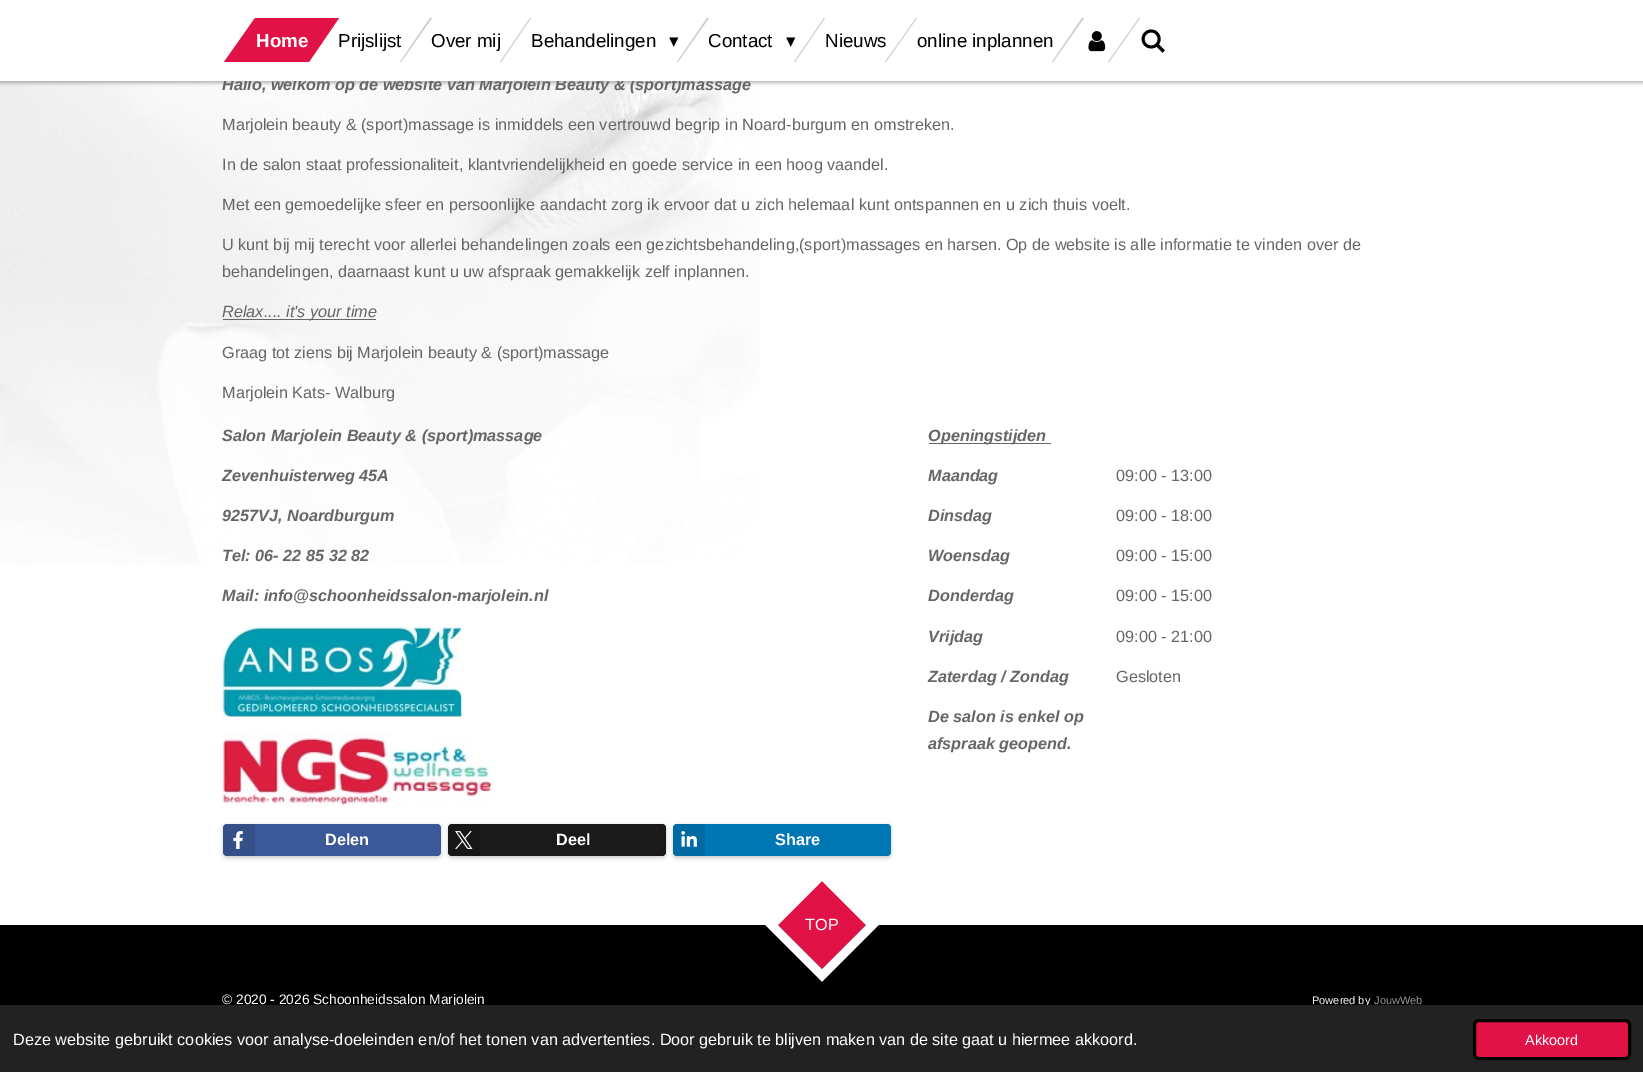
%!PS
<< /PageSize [1643 1072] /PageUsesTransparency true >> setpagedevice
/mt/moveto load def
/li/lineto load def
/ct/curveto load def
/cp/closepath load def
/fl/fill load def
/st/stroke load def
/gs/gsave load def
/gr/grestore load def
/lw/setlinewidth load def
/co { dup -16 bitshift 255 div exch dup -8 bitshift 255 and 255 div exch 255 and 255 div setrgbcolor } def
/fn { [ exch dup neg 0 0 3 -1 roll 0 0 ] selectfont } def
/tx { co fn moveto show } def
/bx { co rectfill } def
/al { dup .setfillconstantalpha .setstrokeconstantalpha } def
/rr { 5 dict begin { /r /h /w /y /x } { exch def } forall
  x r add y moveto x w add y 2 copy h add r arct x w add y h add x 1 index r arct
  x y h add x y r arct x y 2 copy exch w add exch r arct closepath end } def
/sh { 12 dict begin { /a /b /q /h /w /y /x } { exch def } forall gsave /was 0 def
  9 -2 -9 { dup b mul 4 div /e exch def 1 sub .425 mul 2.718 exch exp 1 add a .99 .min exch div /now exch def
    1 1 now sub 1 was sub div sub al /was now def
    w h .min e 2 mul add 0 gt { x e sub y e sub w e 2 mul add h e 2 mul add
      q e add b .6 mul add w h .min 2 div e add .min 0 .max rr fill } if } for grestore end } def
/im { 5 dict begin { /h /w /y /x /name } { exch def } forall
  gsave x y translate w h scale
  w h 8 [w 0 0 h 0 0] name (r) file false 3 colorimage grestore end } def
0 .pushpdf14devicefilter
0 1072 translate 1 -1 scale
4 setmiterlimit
0 0 1643 1072 16#FFFFFF bx
(media/8.raw) 0 81 760 484 im
16#000000 co
0 -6 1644 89 0 2 .3 sh
223 319 153 1 16#666666 bx
(media/3.raw) 222 626 240 91 im
(media/4.raw) 222 733 271 74 im
16#000000 co
223 825 218 33 4 2 .2 sh
16#3B5998 co
223 824 218 32 4 rr fl
0.1 al
16#000000 co
227 824 mt 255 824 li 255 856 li 227 856 li 225 856 223 854 223 852 ct 223 828 li 223 826 225 824 227 824 ct cp fl
1 al
(media/5.raw) 233 831 10 18 im
448 825 218 33 4 2 .2 sh
16#1A1A1A co
448 824 218 32 4 rr fl
0.1 al
16#000000 co
452 824 mt 480 824 li 480 856 li 452 856 li 450 856 448 854 448 852 ct 448 828 li 448 826 450 824 452 824 ct cp fl
1 al
(media/6.raw) 455 831 18 18 im
673 825 218 33 4 2 .2 sh
16#0077B5 co
673 824 218 32 4 rr fl
0.1 al
16#000000 co
677 824 mt 705 824 li 705 856 li 677 856 li 675 856 673 854 673 852 ct 673 828 li 673 826 675 824 677 824 ct cp fl
1 al
(media/7.raw) 681 831 16 16 im
929 443 122 1 16#666666 bx
0 925 1643 80 16#000000 bx
16#E11246 co
822 881 mt 866 925 li 822 969 li 778 925 li cp fl
16#FFFFFF co
8.8 lw
822 874.5 mt 872.5 925 li 822 975.5 li 771.5 925 li cp st
(Hallo, welkom op de website van Marjolein Beauty & \(sport\)massage) 222 90 /LiberationSans-BoldItalic 16.25 16#666666 tx
0 0 1643 81 16#FFFFFF bx
16#E11246 co
255 18 mt 339 18 li 309 62 li 224 62 li cp fl
(Home) 256 47 /LiberationSans-Bold 18.75 16#FFFFFF tx
(media/2.raw) 1141 29 24 24 im
(media/1.raw) 1088 31 18 21 im
16#CCCCCC co
1139 18 mt 1140 18 li 1109 62 li 1108 62 li cp fl
(online inplannen) 917 47 /LiberationSans-Regular 18.75 16#000000 tx
16#CCCCCC co
1082 18 mt 1084 18 li 1053 62 li 1052 62 li cp fl
916 18 mt 917 18 li 886 62 li 885 62 li cp fl
(Nieuws) 825 47 /LiberationSans-Regular 18.75 16#000000 tx
16#CCCCCC co
824 18 mt 825 18 li 795 62 li 794 62 li cp fl
(▾) 786 47 /DejaVuSans-Regular 18.75 16#000000 tx
(Contact) 708 47 /LiberationSans-Regular 18.75 16#000000 tx
16#CCCCCC co
707 18 mt 709 18 li 678 62 li 677 62 li cp fl
(▾) 669 47 /DejaVuSans-Regular 18.75 16#000000 tx
(Behandelingen) 531 47 /LiberationSans-Regular 18.75 16#000000 tx
(Over mij) 431 47 /LiberationSans-Regular 18.75 16#000000 tx
16#CCCCCC co
530 18 mt 531 18 li 501 62 li 500 62 li cp fl
430 18 mt 432 18 li 401 62 li 400 62 li cp fl
(Prijslijst) 338 47 /LiberationSans-Regular 18.75 16#000000 tx
(Marjolein beauty & \(sport\)massage is inmiddels een vertrouwd begrip in Noard-burgum en omstreken.) 222 130 /LiberationSans-Regular 16.25 16#666666 tx
(In de salon staat professionaliteit, klantvriendelijkheid en goede service in een hoog vaandel.) 222 170 /LiberationSans-Regular 16.25 16#666666 tx
(Met een gemoedelijke sfeer en persoonlijke aandacht zorg ik ervoor dat u zich helemaal kunt ontspannen en u zich thuis voelt.) 222 210 /LiberationSans-Regular 16.25 16#666666 tx
(U kunt bij mij terecht voor allerlei behandelingen zoals een gezichtsbehandeling,\(sport\)massages en harsen. Op de website is alle informatie te vinden over de) 222 250 /LiberationSans-Regular 16.25 16#666666 tx
(behandelingen, daarnaast kunt u uw afspraak gemakkelijk zelf inplannen.) 222 277 /LiberationSans-Regular 16.25 16#666666 tx
(Relax.... it's your time) 222 317 /LiberationSans-Italic 16.25 16#666666 tx
(Graag tot ziens bij Marjolein beauty & \(sport\)massage) 222 358 /LiberationSans-Regular 16.25 16#666666 tx
(Marjolein Kats- Walburg) 222 398 /LiberationSans-Regular 16.25 16#666666 tx
(Salon Marjolein Beauty & \(sport\)massage) 222 441 /LiberationSans-BoldItalic 16.25 16#666666 tx
(Zevenhuisterweg 45A) 222 481 /LiberationSans-BoldItalic 16.25 16#666666 tx
(9257VJ, Noardburgum) 222 521 /LiberationSans-BoldItalic 16.25 16#666666 tx
(Tel: 06- 22 85 32 82) 222 561 /LiberationSans-BoldItalic 16.25 16#666666 tx
(Mail: info@schoonheidssalon-marjolein.nl) 222 601 /LiberationSans-BoldItalic 16.25 16#666666 tx
(Delen) 325 845 /LiberationSans-Bold 16.25 16#FFFFFF tx
(Deel) 556 845 /LiberationSans-Bold 16.25 16#FFFFFF tx
(Share) 775 845 /LiberationSans-Bold 16.25 16#FFFFFF tx
(Openingstijden) 928 441 /LiberationSans-BoldItalic 16.25 16#666666 tx
(Maandag) 928 481 /LiberationSans-BoldItalic 16.25 16#666666 tx
(Dinsdag) 928 521 /LiberationSans-BoldItalic 16.25 16#666666 tx
(Woensdag) 928 561 /LiberationSans-BoldItalic 16.25 16#666666 tx
(Donderdag) 928 601 /LiberationSans-BoldItalic 16.25 16#666666 tx
(Vrijdag) 928 642 /LiberationSans-BoldItalic 16.25 16#666666 tx
(Zaterdag / Zondag) 928 682 /LiberationSans-BoldItalic 16.25 16#666666 tx
(De salon is enkel op) 928 722 /LiberationSans-BoldItalic 16.25 16#666666 tx
(afspraak geopend.) 928 749 /LiberationSans-BoldItalic 16.25 16#666666 tx
(09:00 - 13:00) 1116 481 /LiberationSans-Regular 16.25 16#666666 tx
(09:00 - 18:00) 1116 521 /LiberationSans-Regular 16.25 16#666666 tx
(09:00 - 15:00) 1116 561 /LiberationSans-Regular 16.25 16#666666 tx
(09:00 - 15:00) 1116 601 /LiberationSans-Regular 16.25 16#666666 tx
(09:00 - 21:00) 1116 642 /LiberationSans-Regular 16.25 16#666666 tx
(Gesloten) 1116 682 /LiberationSans-Regular 16.25 16#666666 tx
(TOP) 805 930 /LiberationSans-Regular 16.25 16#FFFFFF tx
(© 2020 - 2026 Schoonheidssalon Marjolein) 222 1004 /LiberationSans-Regular 13.75 16#FFFFFF tx
(Powered by) 1312 1004 /LiberationSans-Regular 11 16#FFFFFF tx
(JouwWeb) 1374 1004 /LiberationSans-Regular 11 16#999999 tx
0 1005 1643 67 16#222222 bx
(Deze website gebruikt cookies voor analyse-doeleinden en/of het tonen van advertenties. Door gebruik te blijven maken van de site gaat u hiermee akkoord.) 13 1045 /LiberationSans-Regular 16.25 16#FFFFFF tx
16#E11246 co
1474.5 1020.5 155 38 4.5 rr gs fl gr
16#000000 co
3 lw
st
(Akkoord) 1525 1045 /LiberationSans-Regular 14.5 16#FFFFFF tx
.poppdf14devicefilter showpage
